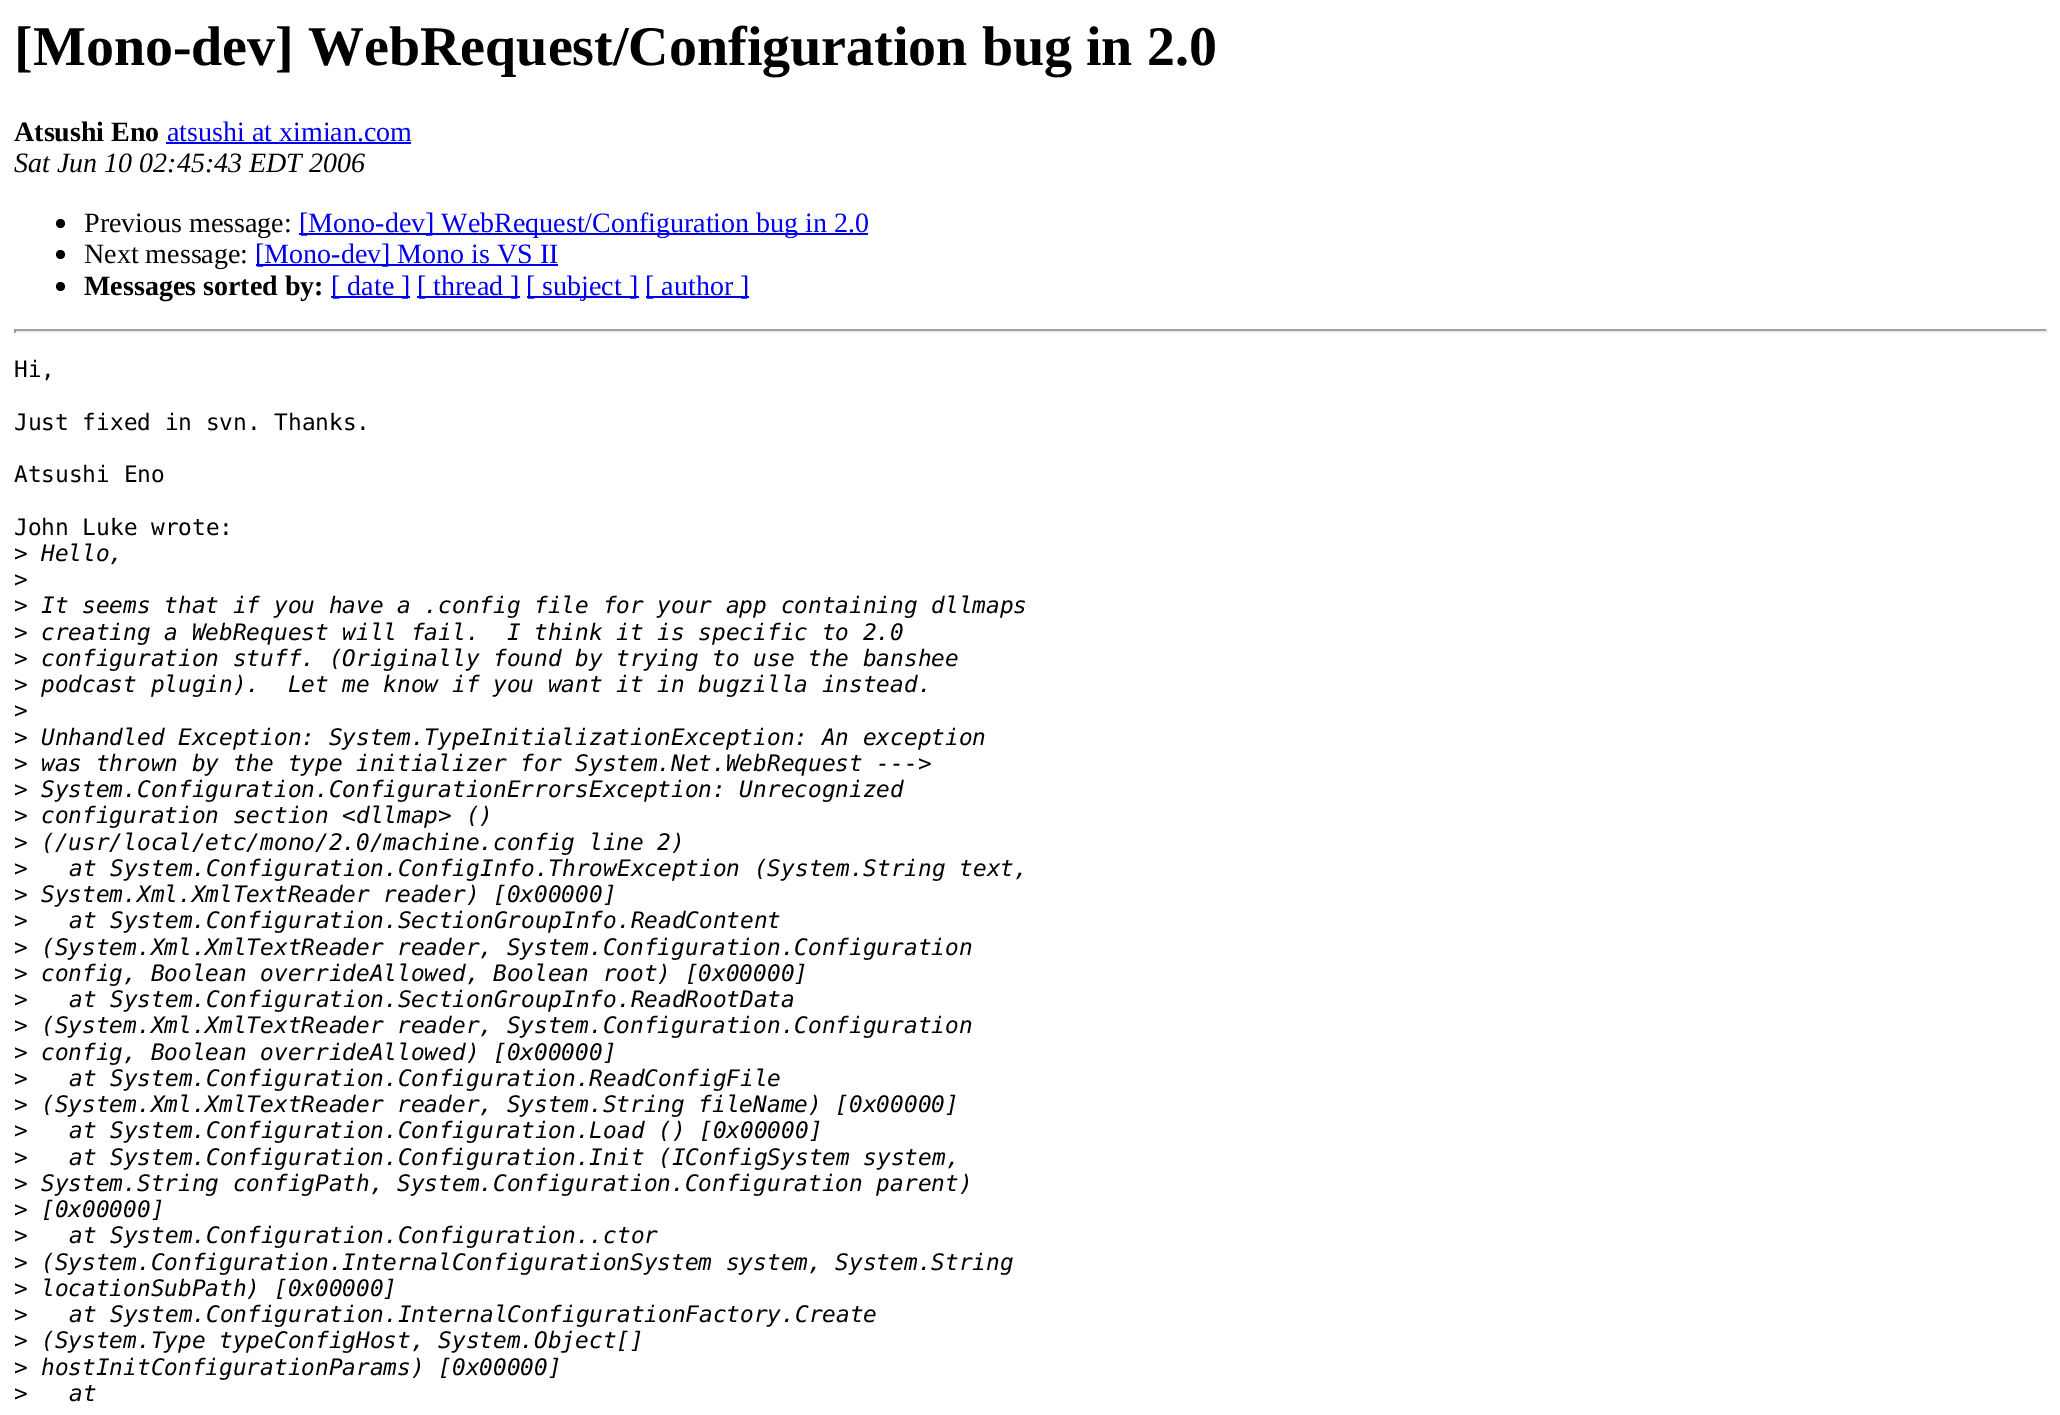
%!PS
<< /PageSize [2060 1415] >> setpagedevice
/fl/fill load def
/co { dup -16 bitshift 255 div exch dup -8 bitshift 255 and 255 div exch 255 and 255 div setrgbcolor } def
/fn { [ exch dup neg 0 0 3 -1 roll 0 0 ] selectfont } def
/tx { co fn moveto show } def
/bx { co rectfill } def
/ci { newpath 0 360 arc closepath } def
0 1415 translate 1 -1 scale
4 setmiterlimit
0 0 2060 1415 16#FFFFFF bx
166 142 245 2 16#0000EE bx
16#000000 co
60.5 223.5 4.5 ci fl
299 233 569 2 16#0000EE bx
16#000000 co
60.5 254.5 4.5 ci fl
256 264 302 2 16#0000EE bx
16#000000 co
60.5 286.5 4.5 ci fl
331 296 79 2 16#0000EE bx
417 296 103 2 16#0000EE bx
527 296 112 2 16#0000EE bx
646 296 103 2 16#0000EE bx
14 329 2034 2 16#9F9F9F bx
2046 329 2 4 16#EEEEEE bx
14 331 2034 2 16#EEEEEE bx
14 329 2 4 16#9F9F9F bx
([Mono-dev] WebRequest/Configuration bug in 2.0) 14 65 /LiberationSerif-Bold 56 16#000000 tx
(Atsushi Eno) 14 141 /LiberationSerif-Bold 28 16#000000 tx
(atsushi at ximian.com) 167 141 /LiberationSerif-Regular 28 16#0000EE tx
(Sat Jun 10 02:45:43 EDT 2006) 14 172 /LiberationSerif-Italic 28 16#000000 tx
(Previous message:) 84 232 /LiberationSerif-Regular 28 16#000000 tx
([Mono-dev] WebRequest/Configuration bug in 2.0) 299 232 /LiberationSerif-Regular 28 16#0000EE tx
(Next message:) 84 263 /LiberationSerif-Regular 28 16#000000 tx
([Mono-dev] Mono is VS II) 255 263 /LiberationSerif-Regular 28 16#0000EE tx
(Messages sorted by:) 84 295 /LiberationSerif-Bold 28 16#000000 tx
([ date ]) 331 295 /LiberationSerif-Regular 28 16#0000EE tx
([ thread ]) 417 295 /LiberationSerif-Regular 28 16#0000EE tx
([ subject ]) 526 295 /LiberationSerif-Regular 28 16#0000EE tx
([ author ]) 645 295 /LiberationSerif-Regular 28 16#0000EE tx
(Hi,) 14 377 /DejaVuSansMono-Regular 22.75 16#000000 tx
(Just fixed in svn. Thanks.) 14 430 /DejaVuSansMono-Regular 22.75 16#000000 tx
(Atsushi Eno) 14 482 /DejaVuSansMono-Regular 22.75 16#000000 tx
(John Luke wrote:) 14 535 /DejaVuSansMono-Regular 22.75 16#000000 tx
(>) 14 561 /DejaVuSansMono-Regular 22.75 16#000000 tx
(Hello,) 41 561 /DejaVuSansMono-Italic 22.75 16#000000 tx
(>) 14 587 /DejaVuSansMono-Regular 22.75 16#000000 tx
(>) 14 613 /DejaVuSansMono-Regular 22.75 16#000000 tx
(It seems that if you have a .config file for your app containing dllmaps) 41 613 /DejaVuSansMono-Italic 22.75 16#000000 tx
(>) 14 640 /DejaVuSansMono-Regular 22.75 16#000000 tx
(creating a WebRequest will fail.  I think it is specific to 2.0) 41 640 /DejaVuSansMono-Italic 22.75 16#000000 tx
(>) 14 666 /DejaVuSansMono-Regular 22.75 16#000000 tx
(configuration stuff. \(Originally found by trying to use the banshee) 41 666 /DejaVuSansMono-Italic 22.75 16#000000 tx
(>) 14 692 /DejaVuSansMono-Regular 22.75 16#000000 tx
(podcast plugin\).  Let me know if you want it in bugzilla instead.) 41 692 /DejaVuSansMono-Italic 22.75 16#000000 tx
(>) 14 718 /DejaVuSansMono-Regular 22.75 16#000000 tx
(>) 14 745 /DejaVuSansMono-Regular 22.75 16#000000 tx
(Unhandled Exception: System.TypeInitializationException: An exception) 41 745 /DejaVuSansMono-Italic 22.75 16#000000 tx
(>) 14 771 /DejaVuSansMono-Regular 22.75 16#000000 tx
(was thrown by the type initializer for System.Net.WebRequest --->) 41 771 /DejaVuSansMono-Italic 22.75 16#000000 tx
(>) 14 797 /DejaVuSansMono-Regular 22.75 16#000000 tx
(System.Configuration.ConfigurationErrorsException: Unrecognized) 41 797 /DejaVuSansMono-Italic 22.75 16#000000 tx
(>) 14 823 /DejaVuSansMono-Regular 22.75 16#000000 tx
(configuration section <dllmap> \(\)) 41 823 /DejaVuSansMono-Italic 22.75 16#000000 tx
(>) 14 850 /DejaVuSansMono-Regular 22.75 16#000000 tx
(\(/usr/local/etc/mono/2.0/machine.config line 2\)) 41 850 /DejaVuSansMono-Italic 22.75 16#000000 tx
(>) 14 876 /DejaVuSansMono-Regular 22.75 16#000000 tx
(at System.Configuration.ConfigInfo.ThrowException \(System.String text,) 69 876 /DejaVuSansMono-Italic 22.75 16#000000 tx
(>) 14 902 /DejaVuSansMono-Regular 22.75 16#000000 tx
(System.Xml.XmlTextReader reader\) [0x00000]) 41 902 /DejaVuSansMono-Italic 22.75 16#000000 tx
(>) 14 928 /DejaVuSansMono-Regular 22.75 16#000000 tx
(at System.Configuration.SectionGroupInfo.ReadContent) 69 928 /DejaVuSansMono-Italic 22.75 16#000000 tx
(>) 14 955 /DejaVuSansMono-Regular 22.75 16#000000 tx
(\(System.Xml.XmlTextReader reader, System.Configuration.Configuration) 41 955 /DejaVuSansMono-Italic 22.75 16#000000 tx
(>) 14 981 /DejaVuSansMono-Regular 22.75 16#000000 tx
(config, Boolean overrideAllowed, Boolean root\) [0x00000]) 41 981 /DejaVuSansMono-Italic 22.75 16#000000 tx
(>) 14 1007 /DejaVuSansMono-Regular 22.75 16#000000 tx
(at System.Configuration.SectionGroupInfo.ReadRootData) 69 1007 /DejaVuSansMono-Italic 22.75 16#000000 tx
(>) 14 1033 /DejaVuSansMono-Regular 22.75 16#000000 tx
(\(System.Xml.XmlTextReader reader, System.Configuration.Configuration) 41 1033 /DejaVuSansMono-Italic 22.75 16#000000 tx
(>) 14 1060 /DejaVuSansMono-Regular 22.75 16#000000 tx
(config, Boolean overrideAllowed\) [0x00000]) 41 1060 /DejaVuSansMono-Italic 22.75 16#000000 tx
(>) 14 1086 /DejaVuSansMono-Regular 22.75 16#000000 tx
(at System.Configuration.Configuration.ReadConfigFile) 69 1086 /DejaVuSansMono-Italic 22.75 16#000000 tx
(>) 14 1112 /DejaVuSansMono-Regular 22.75 16#000000 tx
(\(System.Xml.XmlTextReader reader, System.String fileName\) [0x00000]) 41 1112 /DejaVuSansMono-Italic 22.75 16#000000 tx
(>) 14 1138 /DejaVuSansMono-Regular 22.75 16#000000 tx
(at System.Configuration.Configuration.Load \(\) [0x00000]) 69 1138 /DejaVuSansMono-Italic 22.75 16#000000 tx
(>) 14 1165 /DejaVuSansMono-Regular 22.75 16#000000 tx
(at System.Configuration.Configuration.Init \(IConfigSystem system,) 69 1165 /DejaVuSansMono-Italic 22.75 16#000000 tx
(>) 14 1191 /DejaVuSansMono-Regular 22.75 16#000000 tx
(System.String configPath, System.Configuration.Configuration parent\)) 41 1191 /DejaVuSansMono-Italic 22.75 16#000000 tx
(>) 14 1217 /DejaVuSansMono-Regular 22.75 16#000000 tx
([0x00000]) 41 1217 /DejaVuSansMono-Italic 22.75 16#000000 tx
(>) 14 1243 /DejaVuSansMono-Regular 22.75 16#000000 tx
(at System.Configuration.Configuration..ctor) 69 1243 /DejaVuSansMono-Italic 22.75 16#000000 tx
(>) 14 1270 /DejaVuSansMono-Regular 22.75 16#000000 tx
(\(System.Configuration.InternalConfigurationSystem system, System.String) 41 1270 /DejaVuSansMono-Italic 22.75 16#000000 tx
(>) 14 1296 /DejaVuSansMono-Regular 22.75 16#000000 tx
(locationSubPath\) [0x00000]) 41 1296 /DejaVuSansMono-Italic 22.75 16#000000 tx
(>) 14 1322 /DejaVuSansMono-Regular 22.75 16#000000 tx
(at System.Configuration.InternalConfigurationFactory.Create) 69 1322 /DejaVuSansMono-Italic 22.75 16#000000 tx
(>) 14 1348 /DejaVuSansMono-Regular 22.75 16#000000 tx
(\(System.Type typeConfigHost, System.Object[]) 41 1348 /DejaVuSansMono-Italic 22.75 16#000000 tx
(>) 14 1375 /DejaVuSansMono-Regular 22.75 16#000000 tx
(hostInitConfigurationParams\) [0x00000]) 41 1375 /DejaVuSansMono-Italic 22.75 16#000000 tx
(>) 14 1401 /DejaVuSansMono-Regular 22.75 16#000000 tx
(at) 69 1401 /DejaVuSansMono-Italic 22.75 16#000000 tx
showpage
